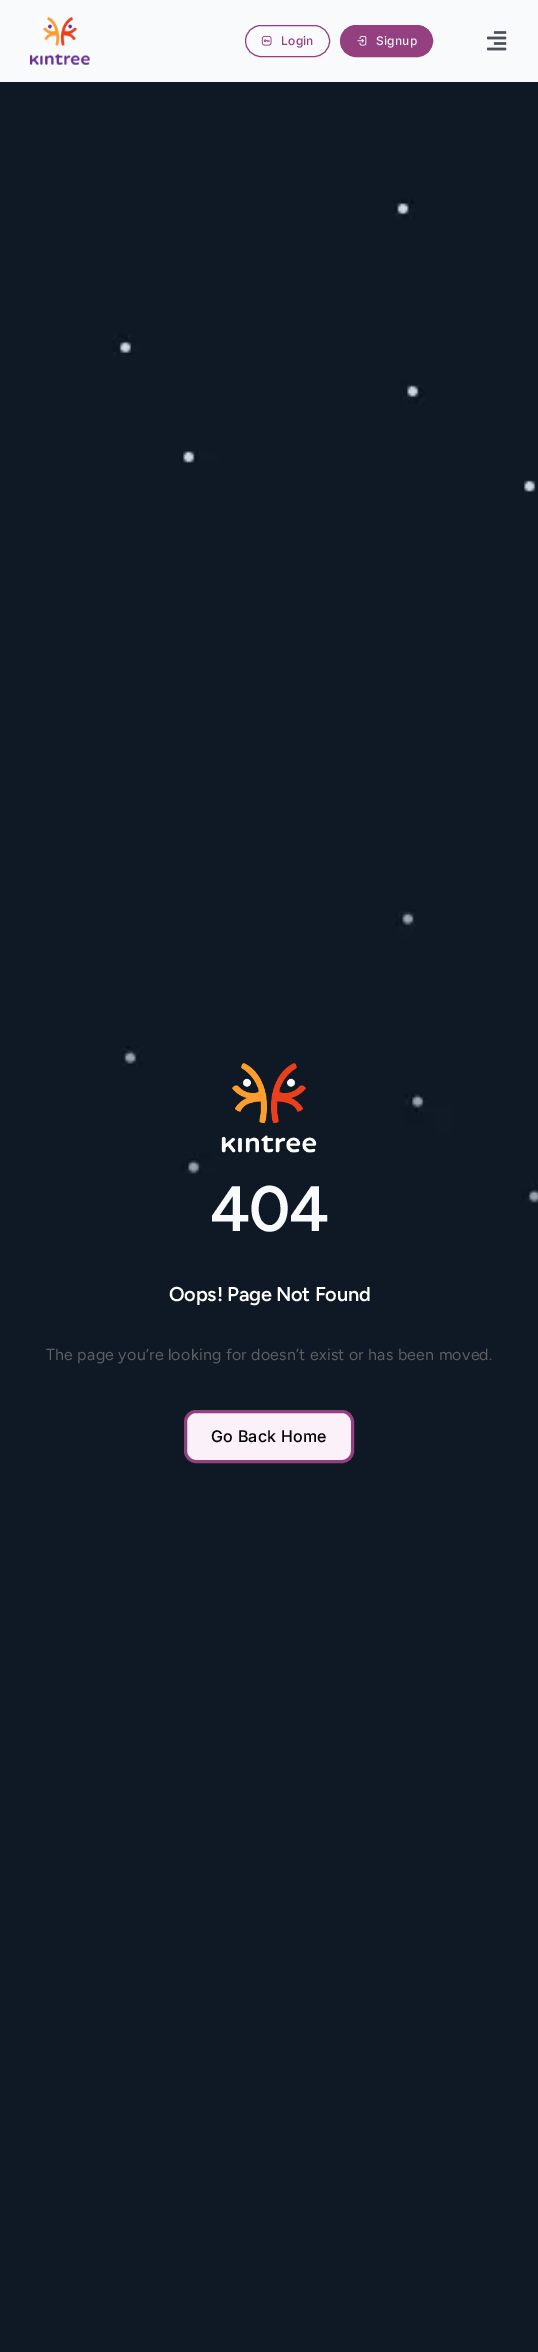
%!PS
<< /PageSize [538 2352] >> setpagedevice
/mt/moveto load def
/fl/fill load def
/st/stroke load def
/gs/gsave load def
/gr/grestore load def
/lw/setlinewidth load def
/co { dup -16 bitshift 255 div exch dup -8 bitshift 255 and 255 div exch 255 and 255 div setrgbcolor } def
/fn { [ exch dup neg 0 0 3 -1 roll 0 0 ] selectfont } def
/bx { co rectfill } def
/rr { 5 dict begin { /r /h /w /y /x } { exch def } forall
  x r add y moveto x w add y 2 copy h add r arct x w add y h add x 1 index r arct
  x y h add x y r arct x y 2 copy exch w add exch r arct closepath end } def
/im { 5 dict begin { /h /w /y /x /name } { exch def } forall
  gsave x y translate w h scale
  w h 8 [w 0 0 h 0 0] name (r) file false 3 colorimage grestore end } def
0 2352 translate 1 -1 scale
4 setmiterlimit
0 0 538 2352 16#F8FAFC bx
(media/1.raw) 30 17 60 48 im
16#943F7F co
245.5 25.5 84 31 15.5 rr st
(media/2.raw) 261 35 11 11 im
340.5 25.5 92 31 15.5 rr gs fl gr
st
(media/3.raw) 357 35 10 11 im
(media/4.raw) 487 31 20 20 im
(media/5.raw) 0 82 538 2270 im
(media/6.raw) 221 1063 96 90 im
16#FAF2F8 co
185.5 1411.5 167 50 10.5 rr gs fl gr
16#943F7F co
3 lw
st
/Inter-Medium 12 fn
281 45 mt .25 0 (Login) ashow
16#F2F3F5 co
376 45 mt .25 0 (Signup) ashow
/Figtree-SemiBold 64 fn
16#F8FAFC co
210 1231 mt -1 0 (404) ashow
/Figtree-SemiBold 20 fn
16#FFFFFF co
169 1301 mt -.25 0 (Oops! Page Not Found) ashow
/Figtree-Regular 16 fn
16#5E5F60 co
46 1360 mt .25 0 (The page you’re looking for doesn’t exist or has been moved.) ashow
/Inter-Medium 16 fn
16#000000 co
211 1442 mt .25 0 (Go Back Home) ashow
showpage
